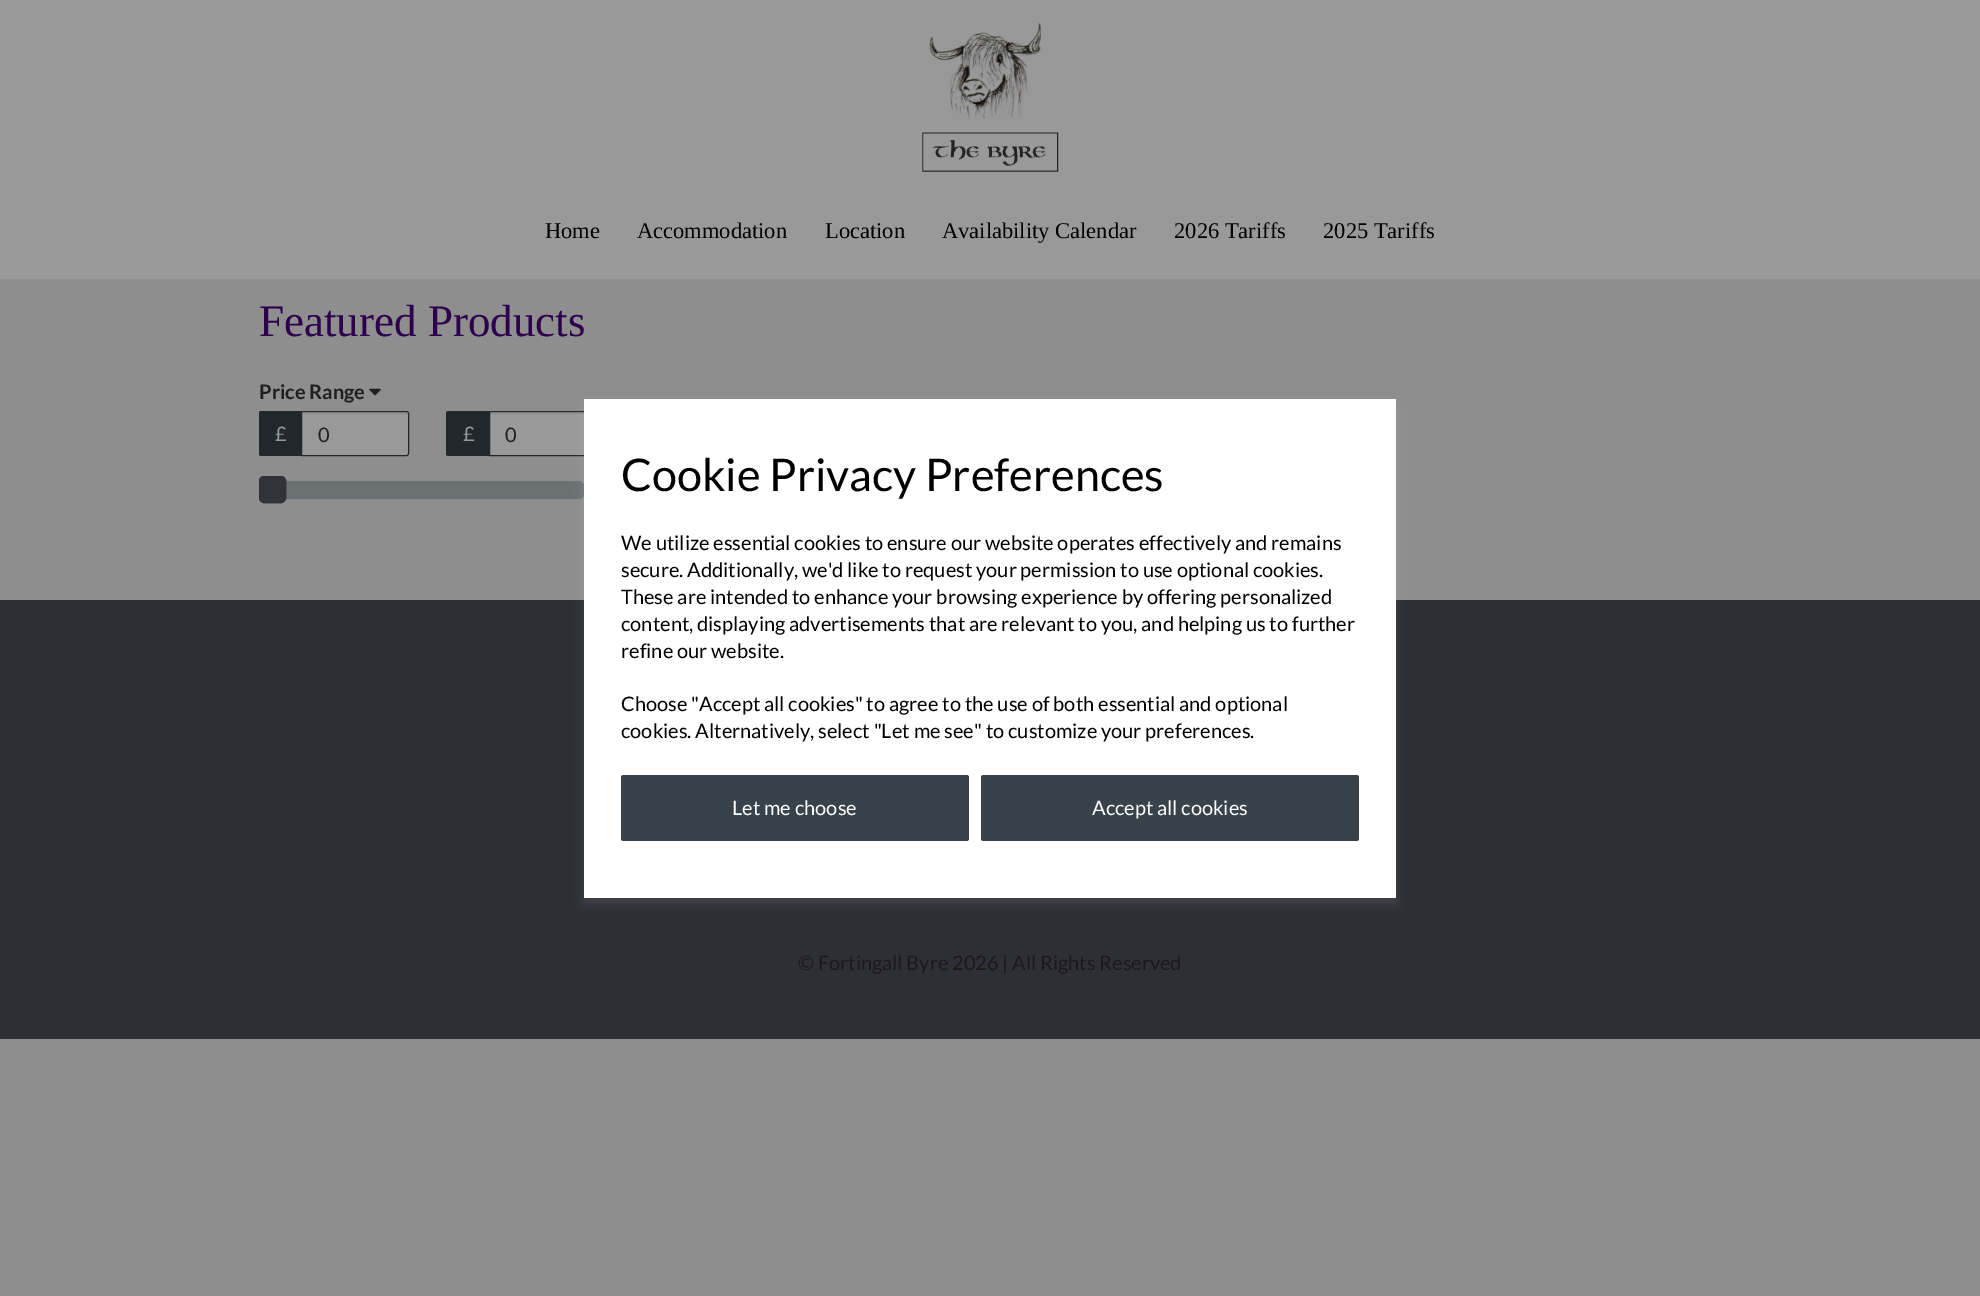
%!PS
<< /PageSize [1980 1296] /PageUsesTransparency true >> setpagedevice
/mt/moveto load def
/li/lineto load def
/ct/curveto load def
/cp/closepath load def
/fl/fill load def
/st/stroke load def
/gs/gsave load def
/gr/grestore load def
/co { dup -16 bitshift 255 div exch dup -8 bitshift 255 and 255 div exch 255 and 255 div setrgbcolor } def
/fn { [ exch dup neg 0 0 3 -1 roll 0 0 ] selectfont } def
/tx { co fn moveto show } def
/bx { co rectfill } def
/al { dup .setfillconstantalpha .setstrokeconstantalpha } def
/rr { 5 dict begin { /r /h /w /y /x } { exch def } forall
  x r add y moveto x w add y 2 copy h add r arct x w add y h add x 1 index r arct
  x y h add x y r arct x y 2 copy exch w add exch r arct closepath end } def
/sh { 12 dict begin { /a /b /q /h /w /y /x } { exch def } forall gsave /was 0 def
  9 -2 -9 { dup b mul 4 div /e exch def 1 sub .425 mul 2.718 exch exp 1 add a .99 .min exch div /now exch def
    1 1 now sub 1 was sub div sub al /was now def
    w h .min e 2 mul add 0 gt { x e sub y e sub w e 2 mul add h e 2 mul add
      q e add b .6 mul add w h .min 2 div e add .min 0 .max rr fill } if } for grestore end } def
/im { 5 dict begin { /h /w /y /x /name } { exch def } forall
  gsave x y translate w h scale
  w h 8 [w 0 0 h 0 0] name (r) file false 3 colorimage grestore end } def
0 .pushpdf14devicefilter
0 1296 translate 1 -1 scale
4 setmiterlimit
0 0 1980 1296 16#8E8E8E bx
0 0 1980 279 16#999999 bx
(media/1.raw) 922 22 137 150 im
(media/2.raw) 369 388 12 8 im
16#21282C co
261.5 411 mt 301 411 li 301 456 li 261.5 456 li 260 456 259 455 259 453.5 ct 259 413.5 li 259 412 260 411 261.5 411 ct cp fl
260 411 1 1 16#21282C bx
260 455 1 1 16#21282C bx
259 454 1 1 16#21282C bx
16#999999 co
301 411 mt 406.5 411 li 408 411 409 412 409 413.5 ct 409 453.5 li 409 455 408 456 406.5 456 ct 301 456 li cp fl
16#8E8E8E co
303 413 mt 303 414 li 406 414 li 407 414 408 414 408 415 ct 408 414 408 413 407 413 ct cp fl
16#21282C co
301.5 411.5 mt 406.5 411.5 li 407.5 411.5 408.5 412.5 408.5 413.5 ct 408.5 453.5 li 408.5 454.5 407.5 455.5 406.5 455.5 ct 301.5 455.5 li cp st
448.5 411 mt 489 411 li 489 456 li 448.5 456 li 447 456 446 455 446 453.5 ct 446 413.5 li 446 412 447 411 448.5 411 ct cp fl
446 454 1 1 16#21282C bx
490 412 94 43 16#999999 bx
16#8E8E8E co
490 414 mt 594 414 li 595 415 li 595 414 595 413 594 413 ct 490 413 li cp fl
16#21282C co
489.5 411.5 106 44 rectstroke
16#6B7173 co
271.5 481.5 312 17 4.5 rr gs fl gr
st
16#313338 co
259.5 476.5 26 26 4.5 rr st
259.5 476.5 26 26 4.5 rr gs fl gr
st
0 600 1980 439 16#2E2E37 bx
16#FFFFFF co
584 404 812 499 0 5 .1 sh
584 399 812 499 16#FFFFFF bx
16#37424A co
621 775 348 66 2.5 rr fl
981 775 378 66 2.5 rr fl
(Home) 545 238 /LiberationSerif-Regular 22.5 16#000000 tx
(Accommodation) 637 238 /LiberationSerif-Regular 22.5 16#000000 tx
(Location) 825 238 /LiberationSerif-Regular 22.5 16#000000 tx
(Availability Calendar) 942 238 /LiberationSerif-Regular 22.5 16#000000 tx
(2026 Tariffs) 1174 238 /LiberationSerif-Regular 22.5 16#000000 tx
(2025 Tariffs) 1323 238 /LiberationSerif-Regular 22.5 16#000000 tx
(Featured Products) 259 336 /LiberationSerif-Regular 45 16#2D004E tx
(Price Range) 259 399 /Lato-Bold 20 16#1F1F1F tx
(£) 275 441 /Lato-Regular 20 16#999999 tx
(0) 318 442 /Lato-Regular 20 16#1F1F1F tx
(£) 463 441 /Lato-Regular 20 16#999999 tx
(0) 505 442 /Lato-Regular 20 16#1F1F1F tx
(Cookie Privacy Preferences) 621 491 /Lato-Regular 45 16#000000 tx
(We utilize essential cookies to ensure our website operates effectively and remains) 621 550 /Lato-Regular 20 16#000000 tx
(secure. Additionally, we'd like to request your permission to use optional cookies.) 621 577 /Lato-Regular 20 16#000000 tx
(These are intended to enhance your browsing experience by offering personalized) 621 604 /Lato-Regular 20 16#000000 tx
(content, displaying advertisements that are relevant to you, and helping us to further) 621 631 /Lato-Regular 20 16#000000 tx
(refine our website.) 621 658 /Lato-Regular 20 16#000000 tx
(Choose "Accept all cookies" to agree to the use of both essential and optional) 621 711 /Lato-Regular 20 16#000000 tx
(cookies. Alternatively, select "Let me see" to customize your preferences.) 621 738 /Lato-Regular 20 16#000000 tx
(Let me choose) 732 815 /Lato-Regular 20 16#FFFFFF tx
(Accept all cookies) 1092 815 /Lato-Regular 20 16#FFFFFF tx
(© Fortingall Byre 2026 | All Rights Reserved) 798 970 /Lato-Regular 20 16#191919 tx
.poppdf14devicefilter showpage
